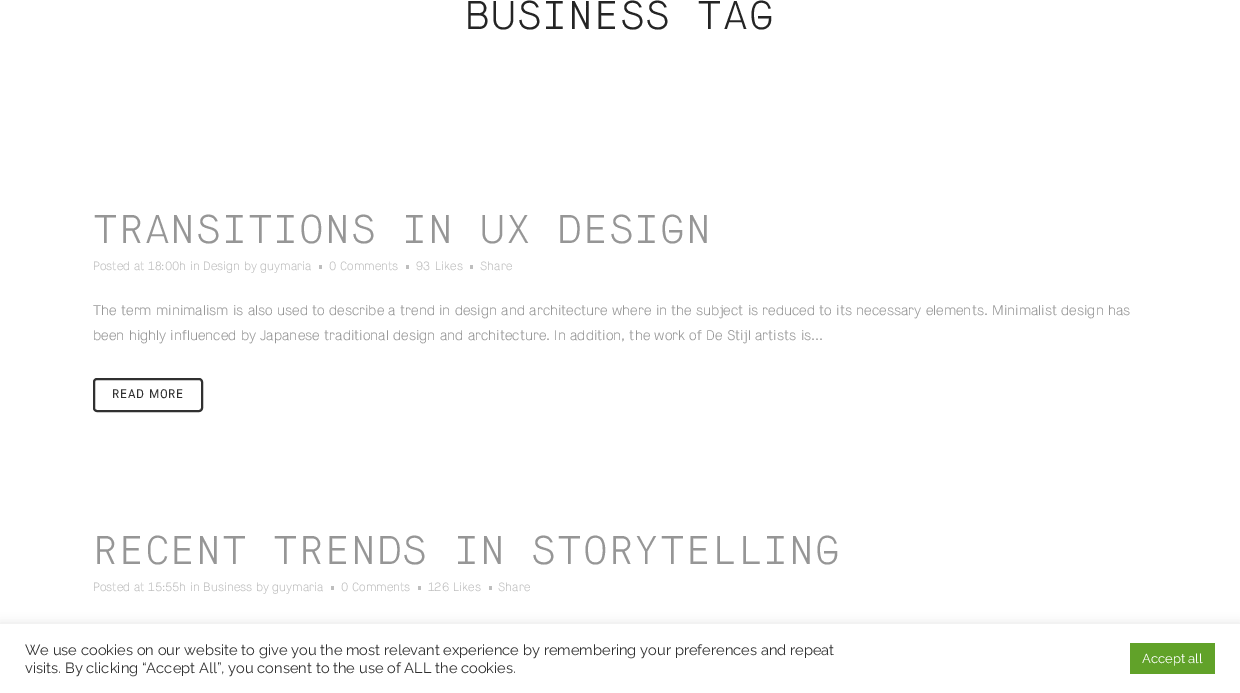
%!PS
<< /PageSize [1240 693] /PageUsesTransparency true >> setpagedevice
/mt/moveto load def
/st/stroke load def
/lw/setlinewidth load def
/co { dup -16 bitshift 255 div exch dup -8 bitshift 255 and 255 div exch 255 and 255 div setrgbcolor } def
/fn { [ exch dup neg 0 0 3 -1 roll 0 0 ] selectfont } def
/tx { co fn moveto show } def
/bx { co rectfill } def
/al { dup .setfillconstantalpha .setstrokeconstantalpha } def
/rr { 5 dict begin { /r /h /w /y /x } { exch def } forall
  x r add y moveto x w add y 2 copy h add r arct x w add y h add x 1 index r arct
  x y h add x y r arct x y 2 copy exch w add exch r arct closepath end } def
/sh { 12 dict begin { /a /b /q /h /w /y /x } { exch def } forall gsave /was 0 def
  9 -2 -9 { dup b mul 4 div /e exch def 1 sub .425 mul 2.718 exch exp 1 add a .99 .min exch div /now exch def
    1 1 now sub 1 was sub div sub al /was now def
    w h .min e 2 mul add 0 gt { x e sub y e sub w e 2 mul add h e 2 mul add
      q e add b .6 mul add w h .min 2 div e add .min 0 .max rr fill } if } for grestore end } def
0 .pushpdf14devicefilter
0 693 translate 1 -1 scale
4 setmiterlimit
0 0 1240 693 16#FFFFFF bx
319 265 3 4 16#BEBEBE bx
406 265 3 4 16#BEBEBE bx
470 265 3 4 16#BEBEBE bx
16#303030 co
2 lw
94 379 108 32 3 rr st
331 586 3 4 16#BEBEBE bx
418 586 3 4 16#BEBEBE bx
489 586 3 4 16#BEBEBE bx
16#ACABAB co
0 623 1240 69 0 5 .3 sh
0 624 1240 69 16#FFFFFF bx
1130 643 85 31 16#61A229 bx
/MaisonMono-Light 40 fn
16#242424 co
465 29 mt 1 0 (BUSINESS TAG) ashow
16#969696 co
93 243 mt 1 0 (TRANSITIONS IN UX DESIGN) ashow
(Posted at 18:00h in Design by guymaria) 93 270 /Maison-Light 12 16#BEBEBE tx
(0 Comments) 329 270 /Maison-Light 12 16#BEBEBE tx
(93) 416 270 /Maison-Light 12 16#BEBEBE tx
(Likes) 435 270 /Maison-Light 12 16#BEBEBE tx
(Share) 480 270 /Maison-Light 12 16#BEBEBE tx
(The term minimalism is also used to describe a trend in design and architecture where in the subject is reduced to its necessary elements. Minimalist design has) 93 315 /Maison-Light 14 16#969696 tx
(been highly influenced by Japanese traditional design and architecture. In addition, the work of De Stijl artists is...) 93 340 /Maison-Light 14 16#969696 tx
/Maison-Bold 12 fn
16#303030 co
112 398 mt 1 0 (READ MORE) ashow
/MaisonMono-Light 40 fn
16#969696 co
93 564 mt 1 0 (RECENT TRENDS IN STORYTELLING) ashow
(Posted at 15:55h in Business by guymaria) 93 591 /Maison-Light 12 16#BEBEBE tx
(0 Comments) 341 591 /Maison-Light 12 16#BEBEBE tx
(126) 428 591 /Maison-Light 12 16#BEBEBE tx
(Likes) 453 591 /Maison-Light 12 16#BEBEBE tx
(Share) 498 591 /Maison-Light 12 16#BEBEBE tx
(We use cookies on our website to give you the most relevant experience by remembering your preferences and repeat) 25 655 /Raleway-Regular 14.67 16#303030 tx
(visits. By clicking “Accept All”, you consent to the use of ALL the cookies.) 25 673 /Raleway-Regular 14.67 16#303030 tx
(Accept all) 1142 663 /Raleway-Regular 13 16#FFFFFF tx
.poppdf14devicefilter showpage
